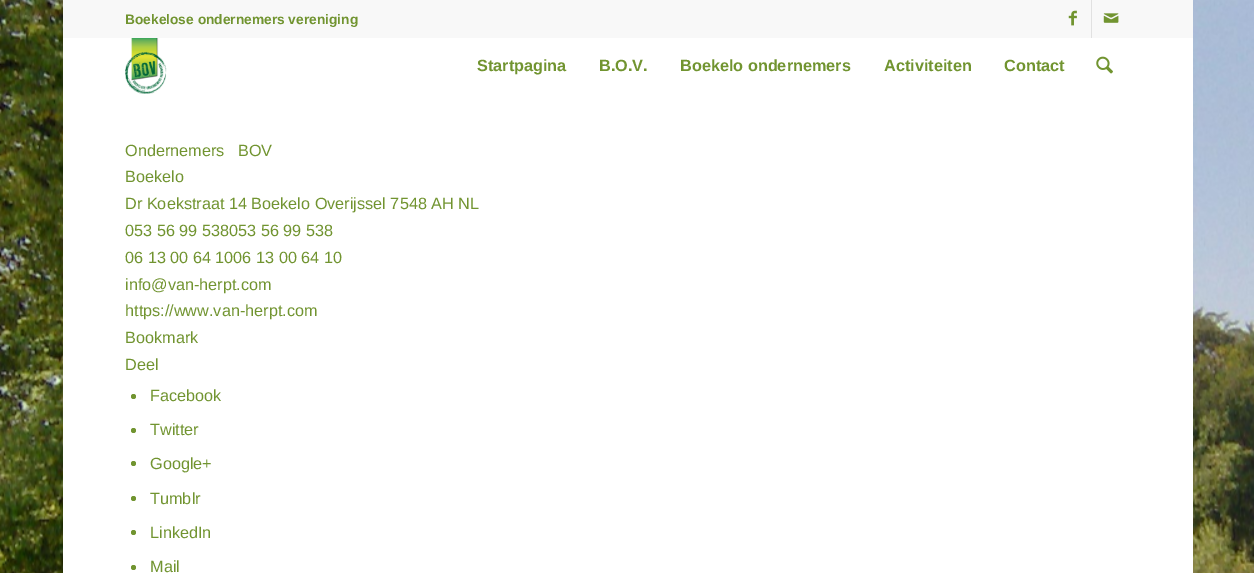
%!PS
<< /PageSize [1254 573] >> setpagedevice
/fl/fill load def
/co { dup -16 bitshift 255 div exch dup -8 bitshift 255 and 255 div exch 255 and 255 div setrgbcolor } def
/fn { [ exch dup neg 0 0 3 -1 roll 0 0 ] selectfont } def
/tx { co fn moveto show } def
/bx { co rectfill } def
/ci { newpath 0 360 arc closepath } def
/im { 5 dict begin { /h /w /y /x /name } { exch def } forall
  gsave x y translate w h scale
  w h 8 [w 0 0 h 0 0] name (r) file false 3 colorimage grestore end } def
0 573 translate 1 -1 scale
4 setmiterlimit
0 0 1254 573 16#FFFFFF bx
(media/1.raw) 0 0 1254 573 im
63 0 1130 38 16#F8F8F8 bx
1091 0 1 38 16#E1E1E1 bx
(media/2.raw) 1068 10 9 16 im
(media/3.raw) 1103 13 16 10 im
63 38 1130 535 16#FFFFFF bx
(media/4.raw) 125 38 42 56 im
(media/5.raw) 1096 56 17 18 im
16#719430 co
133.5 396.5 2.5 ci fl
133.5 430.5 2.5 ci fl
133.5 463.5 2.5 ci fl
133.5 498.5 2.5 ci fl
133.5 532.5 2.5 ci fl
133.5 567.5 2.5 ci fl
(Boekelose ondernemers vereniging) 125 24 /LiberationSans-Bold 13.75 16#719430 tx
(Startpagina) 477 71 /LiberationSans-Bold 16.25 16#719430 tx
(B.O.V.) 599 71 /LiberationSans-Bold 16.25 16#719430 tx
(Boekelo ondernemers) 680 71 /LiberationSans-Bold 16.25 16#719430 tx
(Activiteiten) 884 71 /LiberationSans-Bold 16.25 16#719430 tx
(Contact) 1004 71 /LiberationSans-Bold 16.25 16#719430 tx
(Ondernemers) 125 156 /LiberationSans-Regular 16.25 16#719430 tx
(BOV) 238 156 /LiberationSans-Regular 16.25 16#719430 tx
(Boekelo) 125 182 /LiberationSans-Regular 16.25 16#719430 tx
(Dr Koekstraat 14 Boekelo Overijssel 7548 AH NL) 125 209 /LiberationSans-Regular 16.25 16#719430 tx
(053 56 99 538053 56 99 538) 125 236 /LiberationSans-Regular 16.25 16#719430 tx
(06 13 00 64 1006 13 00 64 10) 125 263 /LiberationSans-Regular 16.25 16#719430 tx
(info@van-herpt.com) 125 290 /LiberationSans-Regular 16.25 16#719430 tx
(https://www.van-herpt.com) 125 316 /LiberationSans-Regular 16.25 16#719430 tx
(Bookmark) 125 343 /LiberationSans-Regular 16.25 16#719430 tx
(Deel) 125 370 /LiberationSans-Regular 16.25 16#719430 tx
(Facebook) 150 401 /LiberationSans-Regular 16.25 16#719430 tx
(Twitter) 150 435 /LiberationSans-Regular 16.25 16#719430 tx
(Google+) 150 469 /LiberationSans-Regular 16.25 16#719430 tx
(Tumblr) 150 504 /LiberationSans-Regular 16.25 16#719430 tx
(LinkedIn) 150 538 /LiberationSans-Regular 16.25 16#719430 tx
(Mail) 150 572 /LiberationSans-Regular 16.25 16#719430 tx
showpage
